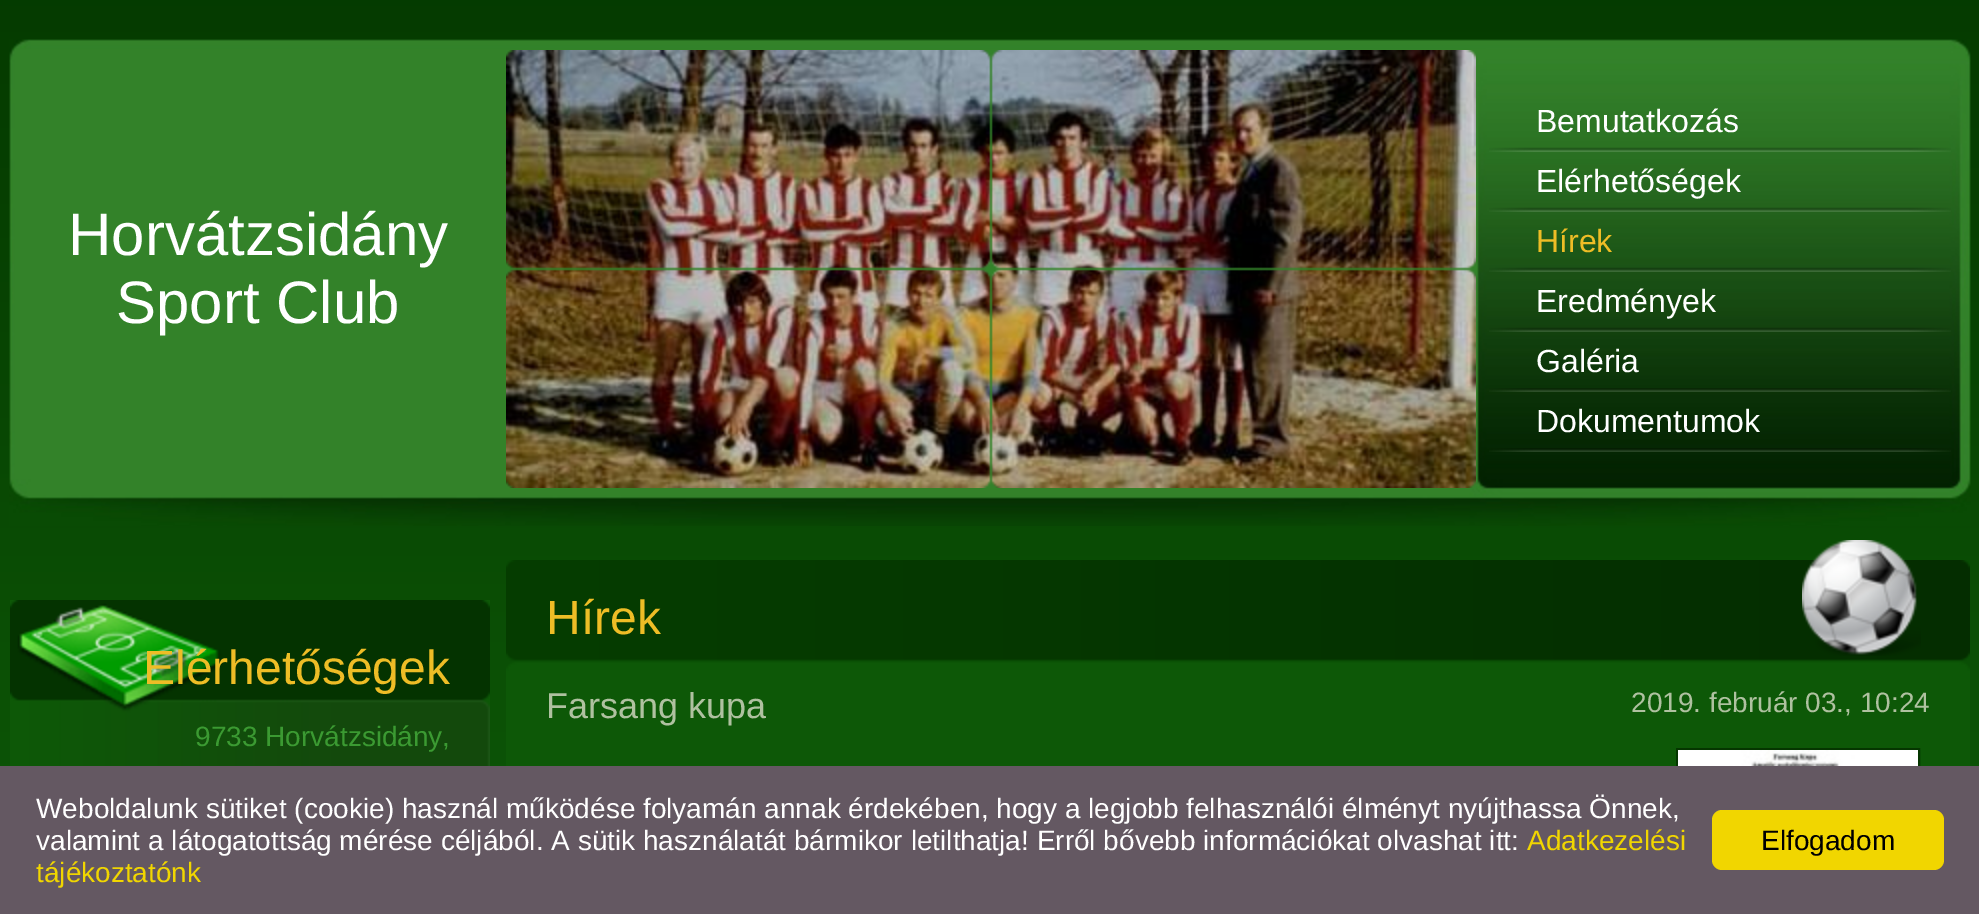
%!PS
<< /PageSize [1979 914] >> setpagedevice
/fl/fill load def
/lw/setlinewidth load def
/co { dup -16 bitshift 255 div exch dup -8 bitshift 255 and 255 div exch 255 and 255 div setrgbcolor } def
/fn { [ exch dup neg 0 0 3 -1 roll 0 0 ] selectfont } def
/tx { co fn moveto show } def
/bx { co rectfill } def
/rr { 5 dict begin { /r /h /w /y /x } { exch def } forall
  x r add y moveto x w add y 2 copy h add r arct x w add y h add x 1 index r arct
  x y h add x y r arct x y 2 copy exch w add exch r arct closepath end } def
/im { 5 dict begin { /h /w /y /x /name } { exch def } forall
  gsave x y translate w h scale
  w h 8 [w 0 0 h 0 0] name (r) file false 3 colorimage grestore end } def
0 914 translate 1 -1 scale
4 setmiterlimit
0 0 1979 914 16#FFFFFF bx
(media/1.raw) 0 0 1979 560 im
(media/2.raw) 9 39 1962 487 im
(media/3.raw) 506 50 970 438 im
(media/4.raw) 506 50 970 438 im
(media/5.raw) 1489 147 462 5 im
(media/6.raw) 1489 207 462 5 im
(media/7.raw) 1489 267 462 5 im
(media/8.raw) 1489 327 462 5 im
(media/9.raw) 1489 388 462 4 im
(media/10.raw) 1489 448 462 4 im
(media/11.raw) 0 560 1979 206 im
(media/12.raw) 10 600 480 166 im
(media/13.raw) 506 560 1464 206 im
(media/14.raw) 1802 540 119 116 im
16#053600 co
2 lw
1677 749 242 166 rectstroke
(media/15.raw) 1678 750 240 16 im
0 766 1979 148 16#645862 bx
16#F1D600 co
1712 810 232 60 10 rr fl
(Horvátzsidány) 68 255 /LiberationSans-Regular 60 16#FFFFFF tx
(Sport Club) 116 323 /LiberationSans-Regular 60 16#FFFFFF tx
(Bemutatkozás) 1536 132 /LiberationSans-Regular 32 16#FFFFFF tx
(Elérhetőségek) 1536 192 /LiberationSans-Regular 32 16#FFFFFF tx
(Hírek) 1536 252 /LiberationSans-Regular 32 16#EEBD26 tx
(Eredmények) 1536 312 /LiberationSans-Regular 32 16#FFFFFF tx
(Galéria) 1536 372 /LiberationSans-Regular 32 16#FFFFFF tx
(Dokumentumok) 1536 432 /LiberationSans-Regular 32 16#FFFFFF tx
(Elérhetőségek) 143 684 /LiberationSans-Regular 48 16#EEBD26 tx
(9733 Horvátzsidány,) 195 746 /LiberationSans-Regular 28 16#3B9A32 tx
(Hírek) 546 634 /LiberationSans-Regular 48 16#EEBD26 tx
(Farsang kupa) 546 718 /LiberationSans-Regular 36 16#AFC1A0 tx
(2019. február 03., 10:24) 1631 712 /LiberationSans-Regular 28 16#AFC1A0 tx
(Weboldalunk sütiket \(cookie\) használ működése folyamán annak érdekében, hogy a legjobb felhasználói élményt nyújthassa Önnek,) 36 818 /LiberationSans-Regular 28 16#FFFFFF tx
(valamint a látogatottság mérése céljából. A sütik használatát bármikor letilthatja! Erről bővebb információkat olvashat itt:) 36 850 /LiberationSans-Regular 28 16#FFFFFF tx
(Adatkezelési) 1527 850 /LiberationSans-Regular 28 16#F1D600 tx
(tájékoztatónk) 36 882 /LiberationSans-Regular 28 16#F1D600 tx
(Elfogadom) 1761 850 /LiberationSans-Regular 28 16#000000 tx
showpage
